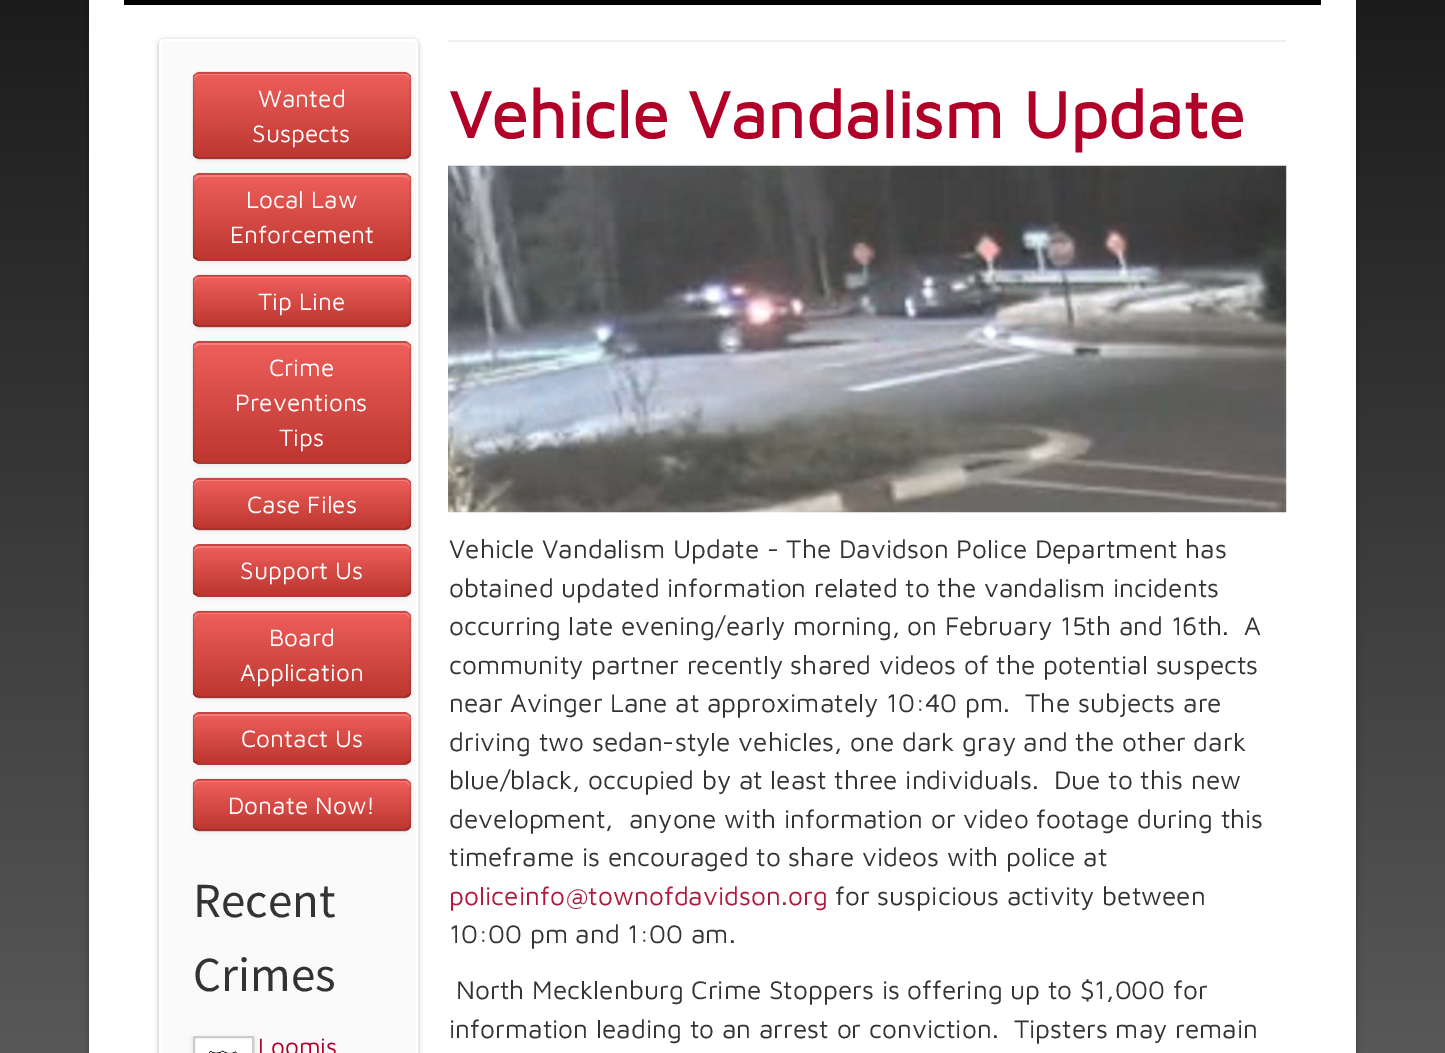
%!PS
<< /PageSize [1445 1053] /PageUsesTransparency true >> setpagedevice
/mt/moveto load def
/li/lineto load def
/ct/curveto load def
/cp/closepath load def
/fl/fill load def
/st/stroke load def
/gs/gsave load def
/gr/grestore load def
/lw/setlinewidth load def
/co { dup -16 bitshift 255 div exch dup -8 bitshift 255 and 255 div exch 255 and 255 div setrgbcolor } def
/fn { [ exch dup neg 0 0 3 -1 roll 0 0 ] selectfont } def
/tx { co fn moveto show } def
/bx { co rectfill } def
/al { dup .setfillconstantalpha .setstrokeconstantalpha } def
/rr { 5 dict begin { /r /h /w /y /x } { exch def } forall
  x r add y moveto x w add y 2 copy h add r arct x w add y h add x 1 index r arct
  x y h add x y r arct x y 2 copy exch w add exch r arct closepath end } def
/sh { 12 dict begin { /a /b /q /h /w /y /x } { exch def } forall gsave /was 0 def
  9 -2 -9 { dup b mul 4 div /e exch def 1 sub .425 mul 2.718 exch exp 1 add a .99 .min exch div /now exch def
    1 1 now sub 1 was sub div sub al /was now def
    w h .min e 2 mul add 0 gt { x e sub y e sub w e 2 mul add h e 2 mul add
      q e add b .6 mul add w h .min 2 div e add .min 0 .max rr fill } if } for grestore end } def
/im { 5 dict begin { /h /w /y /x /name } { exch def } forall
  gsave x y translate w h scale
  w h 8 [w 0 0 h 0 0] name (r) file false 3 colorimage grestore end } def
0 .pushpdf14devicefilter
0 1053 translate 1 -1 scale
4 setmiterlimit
0 0 1445 1053 16#FFFFFF bx
gs 0 0 mt 1445 0 li 1445 1053 li 0 1053 li cp clip newpath
<< /ShadingType 2 /ColorSpace /DeviceRGB /Coords [723 -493 723 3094] /Extend [true true] /Function << /FunctionType 2 /Domain [0 1] /C0 [0 0 0] /C1 [.8 .8 .8] /N 1 >> >> shfill gr
16#000000 co
89 -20 1267 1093 9 3.5 .3 sh
89 0 1267 1053 16#FFFFFF bx
124 0 1197 5 16#000000 bx
159 40 259 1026 5 2.5 .3 sh
16#FAFAFA co
160 40 257 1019 4 rr gs fl gr
16#FFFFFF co
2 lw
st
16#000000 co
193 74 218 87 7 2 .05 sh
16#DA4F49 co
193 72 218 87 7 rr fl
gs
193 72 218 87 7 rr clip newpath
gs 193 74 mt 411 74 li 411 158 li 193 158 li cp clip newpath
<< /ShadingType 2 /ColorSpace /DeviceRGB /Coords [302 73 302 158] /Extend [true true] /Function << /FunctionType 2 /Domain [0 1] /C0 [.933 .373 .357] /C1 [.741 .212 .184] /N 1 >> >> shfill gr
gr
16#F17E7B co
200 75 mt 404 75 li 407 75 410 78 410 80 ct 410 77 408 74 405 74 ct 198 74 li 195 75 194 77 194 80 ct 194 78 197 75 200 75 ct cp fl
0.25 al
16#000000 co
1.8 lw
408.5 156.5 mt 407.5 157.5 406 158.5 404 158.5 ct 199.5 158.5 li 198 158.5 196.5 157.5 195 156.5 ct st
0.1 al
195 156.5 mt 194 155.5 193.5 154 193.5 152 ct 193.5 79 li 193.5 77 194 75.5 195 74.5 ct 196.5 73.5 198 72.5 199.5 72.5 ct 404 72.5 li 406 72.5 407.5 73.5 408.5 74.5 ct 409.5 75.5 410.5 77 410.5 79 ct 410.5 152 li 410.5 154 409.5 155.5 408.5 156.5 ct st
1 al
193 175 218 88 7 2 .05 sh
16#DA4F49 co
193 173 218 88 7 rr fl
gs
193 173 218 88 7 rr clip newpath
gs 193 175 mt 411 175 li 411 259 li 193 259 li cp clip newpath
<< /ShadingType 2 /ColorSpace /DeviceRGB /Coords [302 175 302 259] /Extend [true true] /Function << /FunctionType 2 /Domain [0 1] /C0 [.933 .373 .357] /C1 [.741 .212 .184] /N 1 >> >> shfill gr
gr
0.2 al
16#FFFFFF co
200 177 mt 404 177 li 407 177 410 179 410 182 ct 410 180 li 410 177 408 175 405 175 ct 199 175 li 196 175 194 177 194 180 ct 194 182 li 194 179 197 177 200 177 ct cp fl
0.25 al
16#000000 co
408.5 258 mt 407.5 259 406 260 404 260 ct 199.5 260 li 198 260 196.5 259 195 258 ct st
0.1 al
195 258 mt 194 257 193.5 255.5 193.5 254 ct 193.5 180 li 193.5 178.5 194 177 195 176 ct 196.5 175 198 174 199.5 174 ct 404 174 li 406 174 407.5 175 408.5 176 ct 409.5 177 410.5 178.5 410.5 180 ct 410.5 254 li 410.5 255.5 409.5 257 408.5 258 ct st
1 al
193 277 218 52 7 2 .05 sh
16#DA4F49 co
193 275 218 52 7 rr fl
gs
193 275 218 52 7 rr clip newpath
gs 193 277 mt 411 277 li 411 326 li 193 326 li cp clip newpath
<< /ShadingType 2 /ColorSpace /DeviceRGB /Coords [302 277 302 326] /Extend [true true] /Function << /FunctionType 2 /Domain [0 1] /C0 [.933 .373 .357] /C1 [.741 .212 .184] /N 1 >> >> shfill gr
gr
0.2 al
16#FFFFFF co
200 278 mt 404 278 li 407 278 410 281 410 284 ct 410 282 li 410 279 408 277 405 277 ct 199 277 li 196 277 194 279 194 282 ct 194 284 li 194 281 197 278 200 278 ct cp fl
0.25 al
16#000000 co
408.5 324.5 mt 407.5 325.5 406 326.5 404 326.5 ct 199.5 326.5 li 198 326.5 196.5 325.5 195 324.5 ct st
0.1 al
195 324.5 mt 194 323.5 193.5 322 193.5 320 ct 193.5 282 li 193.5 280 194 278.5 195 277.5 ct 196.5 276.5 198 275.5 199.5 275.5 ct 404 275.5 li 406 275.5 407.5 276.5 408.5 277.5 ct 409.5 278.5 410.5 280 410.5 282 ct 410.5 320 li 410.5 322 409.5 323.5 408.5 324.5 ct st
1 al
193 343 218 123 7 2 .05 sh
16#DA4F49 co
193 341 218 123 7 rr fl
gs
193 341 218 123 7 rr clip newpath
gs 193 343 mt 411 343 li 411 462 li 193 462 li cp clip newpath
<< /ShadingType 2 /ColorSpace /DeviceRGB /Coords [302 343 302 462] /Extend [true true] /Function << /FunctionType 2 /Domain [0 1] /C0 [.933 .373 .357] /C1 [.741 .212 .184] /N 1 >> >> shfill gr
gr
16#F17F7B co
200 345 mt 404 345 li 407 345 410 347 410 350 ct 410 348 li 410 345 408 343 405 343 ct 199 343 li 196 343 194 345 194 348 ct 194 350 li 194 347 197 345 200 345 ct cp fl
0.25 al
16#000000 co
408.5 461 mt 407.5 462 406 463 404 463 ct 199.5 463 li 198 463 196.5 462 195 461 ct st
0.1 al
195 461 mt 194 460 193.5 458.5 193.5 457 ct 193.5 348 li 193.5 346.5 194 345 195 344 ct 196.5 343 198 342 199.5 342 ct 404 342 li 406 342 407.5 343 408.5 344 ct 409.5 345 410.5 346.5 410.5 348 ct 410.5 457 li 410.5 458.5 409.5 460 408.5 461 ct st
1 al
193 480 218 52 7 2 .05 sh
16#DA4F49 co
193 478 218 52 7 rr fl
gs
193 478 218 52 7 rr clip newpath
gs 193 480 mt 411 480 li 411 529 li 193 529 li cp clip newpath
<< /ShadingType 2 /ColorSpace /DeviceRGB /Coords [302 480 302 529] /Extend [true true] /Function << /FunctionType 2 /Domain [0 1] /C0 [.933 .373 .357] /C1 [.741 .212 .184] /N 1 >> >> shfill gr
gr
0.2 al
16#FFFFFF co
200 481 mt 404 481 li 407 481 410 484 410 486 ct 410 483 408 480 405 480 ct 198 480 li 195 481 194 483 194 486 ct 194 484 197 481 200 481 ct cp fl
0.25 al
16#000000 co
408.5 527.5 mt 407.5 528.5 406 529.5 404 529.5 ct 199.5 529.5 li 198 529.5 196.5 528.5 195 527.5 ct st
0.1 al
195 527.5 mt 194 526.5 193.5 525 193.5 523 ct 193.5 485 li 193.5 483 194 481.5 195 480.5 ct 196.5 479.5 198 478.5 199.5 478.5 ct 404 478.5 li 406 478.5 407.5 479.5 408.5 480.5 ct 409.5 481.5 410.5 483 410.5 485 ct 410.5 523 li 410.5 525 409.5 526.5 408.5 527.5 ct st
1 al
193 546 218 53 7 2 .05 sh
16#DA4F49 co
193 544 218 53 7 rr fl
gs
193 544 218 53 7 rr clip newpath
gs 193 546 mt 411 546 li 411 595 li 193 595 li cp clip newpath
<< /ShadingType 2 /ColorSpace /DeviceRGB /Coords [302 546 302 595] /Extend [true true] /Function << /FunctionType 2 /Domain [0 1] /C0 [.933 .373 .357] /C1 [.741 .212 .184] /N 1 >> >> shfill gr
gr
0.2 al
16#FFFFFF co
200 548 mt 404 548 li 407 548 410 550 410 553 ct 410 551 li 410 548 408 546 405 546 ct 199 546 li 196 546 194 548 194 551 ct 194 553 li 194 550 197 548 200 548 ct cp fl
0.25 al
16#000000 co
408.5 594 mt 407.5 595 406 596 404 596 ct 199.5 596 li 198 596 196.5 595 195 594 ct st
0.1 al
195 594 mt 194 593 193.5 591.5 193.5 590 ct 193.5 551 li 193.5 549.5 194 548 195 547 ct 196.5 546 198 545 199.5 545 ct 404 545 li 406 545 407.5 546 408.5 547 ct 409.5 548 410.5 549.5 410.5 551 ct 410.5 590 li 410.5 591.5 409.5 593 408.5 594 ct st
1 al
193 613 218 87 7 2 .05 sh
16#DA4F49 co
193 611 218 87 7 rr fl
gs
193 611 218 87 7 rr clip newpath
gs 193 613 mt 411 613 li 411 697 li 193 697 li cp clip newpath
<< /ShadingType 2 /ColorSpace /DeviceRGB /Coords [302 613 302 697] /Extend [true true] /Function << /FunctionType 2 /Domain [0 1] /C0 [.933 .373 .357] /C1 [.741 .212 .184] /N 1 >> >> shfill gr
gr
0.2 al
16#FFFFFF co
200 614 mt 404 614 li 407 614 410 617 410 620 ct 410 618 li 410 615 408 613 405 613 ct 199 613 li 196 613 194 615 194 618 ct 194 620 li 194 617 197 614 200 614 ct cp fl
0.25 al
16#000000 co
408.5 695.5 mt 407.5 696.5 406 697.5 404 697.5 ct 199.5 697.5 li 198 697.5 196.5 696.5 195 695.5 ct st
0.1 al
195 695.5 mt 194 694.5 193.5 693 193.5 691 ct 193.5 618 li 193.5 616 194 614.5 195 613.5 ct 196.5 612.5 198 611.5 199.5 611.5 ct 404 611.5 li 406 611.5 407.5 612.5 408.5 613.5 ct 409.5 614.5 410.5 616 410.5 618 ct 410.5 691 li 410.5 693 409.5 694.5 408.5 695.5 ct st
1 al
193 714 218 53 7 2 .05 sh
16#DA4F49 co
193 712 218 53 7 rr fl
gs
193 712 218 53 7 rr clip newpath
gs 193 714 mt 411 714 li 411 763 li 193 763 li cp clip newpath
<< /ShadingType 2 /ColorSpace /DeviceRGB /Coords [302 714 302 763] /Extend [true true] /Function << /FunctionType 2 /Domain [0 1] /C0 [.933 .373 .357] /C1 [.741 .212 .184] /N 1 >> >> shfill gr
gr
0.2 al
16#FFFFFF co
200 716 mt 404 716 li 407 716 410 718 410 721 ct 410 719 li 410 716 408 714 405 714 ct 199 714 li 196 714 194 716 194 719 ct 194 721 li 194 718 197 716 200 716 ct cp fl
0.25 al
16#000000 co
408.5 762 mt 407.5 763 406 764 404 764 ct 199.5 764 li 198 764 196.5 763 195 762 ct st
0.1 al
195 762 mt 194 761 193.5 759.5 193.5 758 ct 193.5 719 li 193.5 717.5 194 716 195 715 ct 196.5 714 198 713 199.5 713 ct 404 713 li 406 713 407.5 714 408.5 715 ct 409.5 716 410.5 717.5 410.5 719 ct 410.5 758 li 410.5 759.5 409.5 761 408.5 762 ct st
1 al
193 781 218 52 7 2 .05 sh
16#DA4F49 co
193 779 218 52 7 rr fl
gs
193 779 218 52 7 rr clip newpath
gs 193 781 mt 411 781 li 411 830 li 193 830 li cp clip newpath
<< /ShadingType 2 /ColorSpace /DeviceRGB /Coords [302 781 302 830] /Extend [true true] /Function << /FunctionType 2 /Domain [0 1] /C0 [.933 .373 .357] /C1 [.741 .212 .184] /N 1 >> >> shfill gr
gr
0.2 al
16#FFFFFF co
200 782 mt 404 782 li 407 782 410 785 410 788 ct 410 786 li 410 783 408 781 405 781 ct 199 781 li 196 781 194 783 194 786 ct 194 788 li 194 785 197 782 200 782 ct cp fl
0.25 al
16#000000 co
408.5 828.5 mt 407.5 829.5 406 830.5 404 830.5 ct 199.5 830.5 li 198 830.5 196.5 829.5 195 828.5 ct st
0.1 al
195 828.5 mt 194 827.5 193.5 826 193.5 824 ct 193.5 786 li 193.5 784 194 782.5 195 781.5 ct 196.5 780.5 198 779.5 199.5 779.5 ct 404 779.5 li 406 779.5 407.5 780.5 408.5 781.5 ct 409.5 782.5 410.5 784 410.5 786 ct 410.5 824 li 410.5 826 409.5 827.5 408.5 828.5 ct st
1 al
193 1038 61 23 0 2.5 .1 sh
16#FFFFFF co
194 1037 mt 253 1037 li 253 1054 li 194 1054 li cp gs fl gr
16#CCCCCC co
2 lw
st
(media/1.raw) 209 1050 28 3 im
448 40 838 2 16#EEEEEE bx
(media/2.raw) 448 165 839 348 im
(Wanted) 258 107 /MavenPro-Regular 24.5 16#FFFFFF tx
(Suspects) 252 142 /MavenPro-Regular 24.5 16#FFFFFF tx
(Local Law) 246 208 /MavenPro-Regular 24.5 16#FFFFFF tx
(Enforcement) 230 243 /MavenPro-Regular 24.5 16#FFFFFF tx
(Tip Line) 258 310 /MavenPro-Regular 24.5 16#FFFFFF tx
(Crime) 269 376 /MavenPro-Regular 24.5 16#FFFFFF tx
(Preventions) 235 411 /MavenPro-Regular 24.5 16#FFFFFF tx
(Tips) 279 446 /MavenPro-Regular 24.5 16#FFFFFF tx
(Case Files) 247 513 /MavenPro-Regular 24.5 16#FFFFFF tx
(Support Us) 240 579 /MavenPro-Regular 24.5 16#FFFFFF tx
(Board) 269 646 /MavenPro-Regular 24.5 16#FFFFFF tx
(Application) 240 681 /MavenPro-Regular 24.5 16#FFFFFF tx
(Contact Us) 241 747 /MavenPro-Regular 24.5 16#FFFFFF tx
(Donate Now!) 228 814 /MavenPro-Regular 24.5 16#FFFFFF tx
(Recent) 193 917 /SourceSansPro-Regular 49 16#333333 tx
(Crimes) 193 991 /SourceSansPro-Regular 49 16#333333 tx
(Loomis) 258 1055 /MavenPro-Regular 24.5 16#B10128 tx
(Vehicle Vandalism Update) 449 138 /MavenPro-Bold 67.4 16#B10128 tx
(Vehicle Vandalism Update - The Davidson Police Department has) 449 558 /MavenPro-Regular 26.25 16#333333 tx
(obtained updated information related to the vandalism incidents) 449 597 /MavenPro-Regular 26.25 16#333333 tx
(occurring late evening/early morning, on February 15th and 16th.  A) 449 635 /MavenPro-Regular 26.25 16#333333 tx
(community partner recently shared videos of the potential suspects) 449 674 /MavenPro-Regular 26.25 16#333333 tx
(near Avinger Lane at approximately 10:40 pm.  The subjects are) 449 712 /MavenPro-Regular 26.25 16#333333 tx
(driving two sedan-style vehicles, one dark gray and the other dark) 449 751 /MavenPro-Regular 26.25 16#333333 tx
(blue/black, occupied by at least three individuals.  Due to this new) 449 789 /MavenPro-Regular 26.25 16#333333 tx
(development,  anyone with information or video footage during this) 449 828 /MavenPro-Regular 26.25 16#333333 tx
(timeframe is encouraged to share videos with police at) 449 866 /MavenPro-Regular 26.25 16#333333 tx
(policeinfo@townofdavidson.org) 449 905 /MavenPro-Regular 26.25 16#B1183B tx
(for suspicious activity between) 835 905 /MavenPro-Regular 26.25 16#333333 tx
(10:00 pm and 1:00 am.) 449 943 /MavenPro-Regular 26.25 16#333333 tx
(North Mecklenburg Crime Stoppers is offering up to $1,000 for) 456 999 /MavenPro-Regular 26.25 16#333333 tx
(information leading to an arrest or conviction.  Tipsters may remain) 449 1038 /MavenPro-Regular 26.25 16#333333 tx
.poppdf14devicefilter showpage
